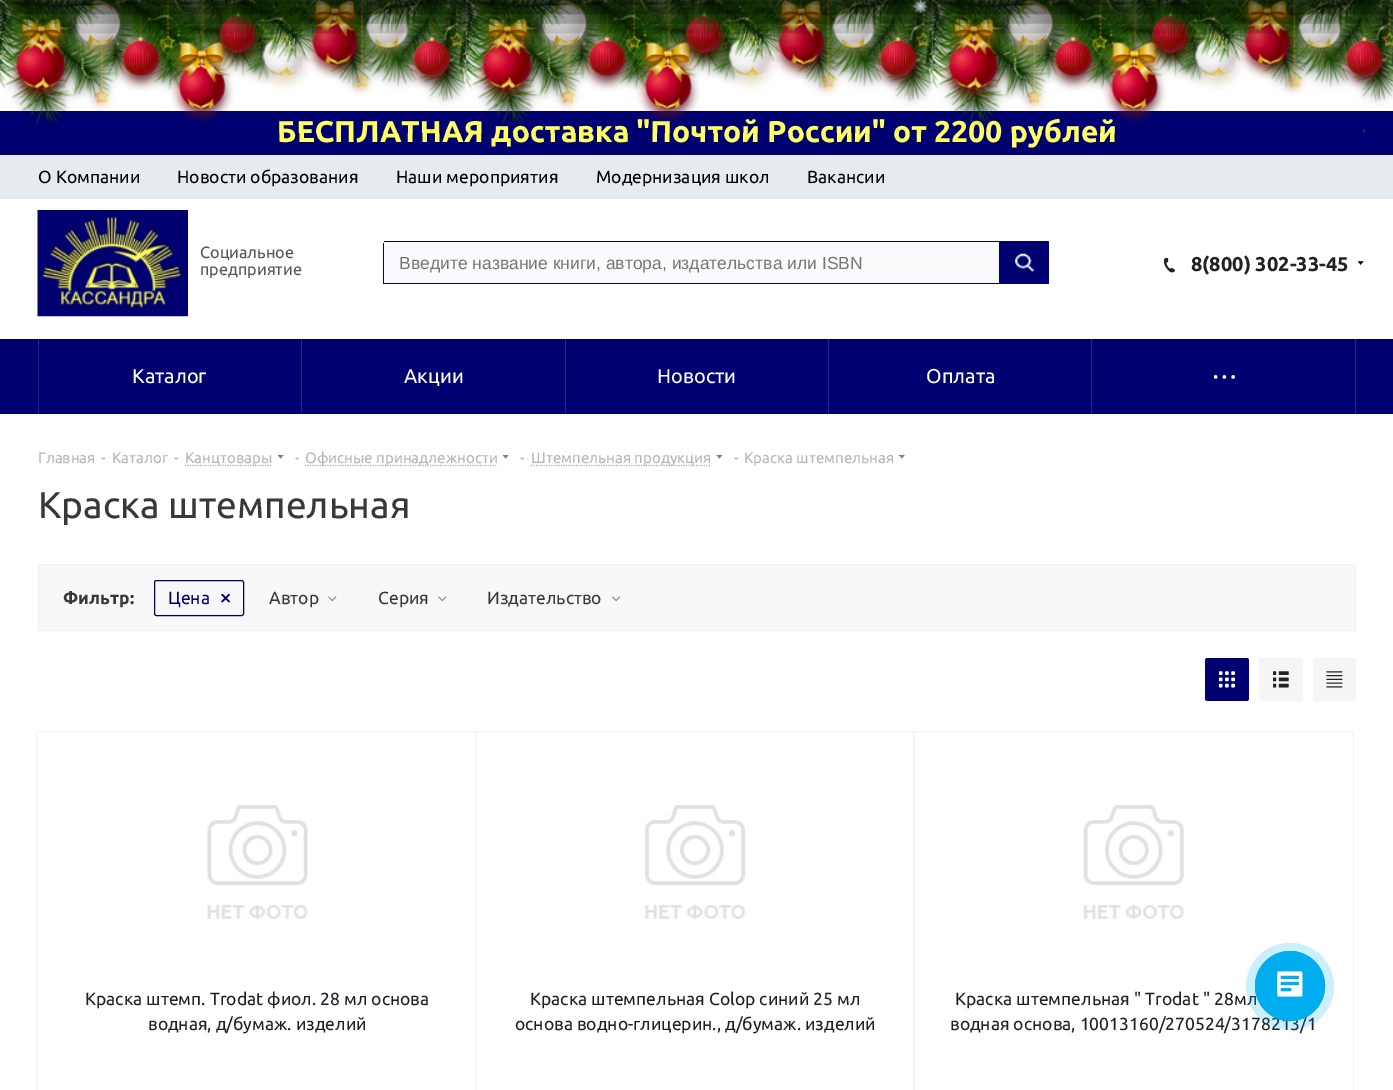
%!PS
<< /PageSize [1393 1090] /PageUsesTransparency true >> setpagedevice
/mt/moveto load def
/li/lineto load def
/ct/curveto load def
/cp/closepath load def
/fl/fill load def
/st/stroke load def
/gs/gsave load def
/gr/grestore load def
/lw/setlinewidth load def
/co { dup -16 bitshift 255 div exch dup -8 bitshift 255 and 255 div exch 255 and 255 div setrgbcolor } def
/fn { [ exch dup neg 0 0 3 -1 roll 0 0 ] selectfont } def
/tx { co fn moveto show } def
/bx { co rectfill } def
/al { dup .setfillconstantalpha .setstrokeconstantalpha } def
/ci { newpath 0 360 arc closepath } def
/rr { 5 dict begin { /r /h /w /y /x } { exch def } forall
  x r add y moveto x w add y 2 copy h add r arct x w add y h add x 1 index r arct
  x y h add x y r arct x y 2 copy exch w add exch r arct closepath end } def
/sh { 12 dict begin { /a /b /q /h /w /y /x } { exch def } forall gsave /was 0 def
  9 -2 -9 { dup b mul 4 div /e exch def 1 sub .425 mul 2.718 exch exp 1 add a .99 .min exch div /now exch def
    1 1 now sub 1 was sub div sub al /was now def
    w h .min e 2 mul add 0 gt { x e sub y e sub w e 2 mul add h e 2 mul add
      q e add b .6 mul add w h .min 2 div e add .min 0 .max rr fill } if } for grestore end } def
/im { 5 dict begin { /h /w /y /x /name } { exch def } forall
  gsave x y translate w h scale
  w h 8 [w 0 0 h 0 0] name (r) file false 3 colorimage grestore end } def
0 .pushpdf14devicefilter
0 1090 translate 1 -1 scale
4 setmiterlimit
0 0 1393 1090 16#FFFFFF bx
0 111 1393 44 16#000070 bx
0 155 1393 44 16#E5EBEF bx
187 210 1 106 16#00006B bx
(media/48.raw) 37 210 151 107 im
16#F8FAFC co
384 241 mt 999 241 li 999 284 li 384 284 li 383.5 284 383 283.5 383 283 ct 383 242 li 383 241.5 383.5 241 384 241 ct cp fl
384 241 615 1 16#000070 bx
384 283 615 1 16#000070 bx
383 243 1 41 16#000070 bx
999 241 mt 1048 241 li 1048.5 241 1049 241.5 1049 242 ct 1049 283 li 1049 283.5 1048.5 284 1048 284 ct 999 284 li cp fl
(media/49.raw) 1015 253 19 19 im
(media/50.raw) 1164 258 11 15 im
(media/51.raw) 1358 261 6 4 im
0 339 1393 75 16#000070 bx
38 339 1 75 16#262685 bx
301 339 1 75 16#262685 bx
565 339 1 75 16#262685 bx
828 339 1 75 16#262685 bx
1091 339 1 75 16#262685 bx
1355 339 1 75 16#262685 bx
(media/52.raw) 1214 375 21 4 im
16#B4B4B4 co
1.2 lw
[1.25 1.25] 0 setdash
185 465.5 mt 272.5 465.5 li st
(media/53.raw) 278 455 6 4 im
305 465.5 mt 497.5 465.5 li st
(media/53.raw) 503 455 6 4 im
531 465.5 mt 711 465.5 li st
(media/54.raw) 716 455 7 4 im
(media/55.raw) 899 455 6 4 im
16#F8F8F9 co
38.5 564.5 1317 66 2 rr gs fl gr
16#F2F2F2 co
1 lw
[] 0 setdash
st
16#000070 co
154.5 580.5 89 35 2 rr st
(media/56.raw) 221 594 9 9 im
(media/57.raw) 328 596 9 6 im
(media/57.raw) 438 596 9 6 im
(media/58.raw) 612 596 9 6 im
1205 658 44 43 2.5 rr fl
(media/59.raw) 1219 671 16 17 im
16#F5F5F5 co
1259 658 44 43 2.5 rr fl
(media/60.raw) 1273 671 16 17 im
1313 658 43 43 2.5 rr fl
(media/61.raw) 1326 671 17 17 im
16#F2F2F2 co
36.5 731.5 441 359 rectstroke
(media/62.raw) 207 805 101 114 im
477 732 1 358 16#FFFFFF bx
16#F2F2F2 co
475.5 731.5 439 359 rectstroke
(media/63.raw) 645 805 101 114 im
914 732 1 358 16#FFFFFF bx
16#F2F2F2 co
913.5 731.5 440 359 rectstroke
(media/64.raw) 1083 805 101 114 im
(БЕСПЛАТНАЯ доставка "Почтой России" от 2200 рублей) 277 142 /Ubuntu-Bold 30 16#FFFF61 tx
(media/2.raw) 0 0 1393 133 im
(media/37.raw) 1103 0 63 124 im
(media/38.raw) 1145 0 51 67 im
(media/45.raw) 1188 7 56 83 im
(media/41.raw) 1237 0 61 79 im
(media/42.raw) 1291 0 58 61 im
(media/46.raw) 1339 12 51 79 im
(media/43.raw) 1294 0 98 35 im
(media/47.raw) 1391 0 2 77 im
(media/39.raw) 1154 0 35 39 im
(media/40.raw) 1188 0 64 63 im
(media/34.raw) 941 0 65 102 im
(media/31.raw) 925 0 8 86 im
(media/33.raw) 932 0 32 89 im
(media/36.raw) 1000 0 61 58 im
(media/35.raw) 963 0 77 33 im
(media/44.raw) 1047 11 52 80 im
(media/22.raw) 637 0 63 124 im
(media/23.raw) 678 0 51 67 im
(media/29.raw) 721 7 57 83 im
(media/26.raw) 771 0 60 79 im
(media/27.raw) 825 0 58 61 im
(media/32.raw) 872 12 52 79 im
(media/30.raw) 827 0 98 35 im
(media/24.raw) 687 0 36 39 im
(media/25.raw) 722 0 63 63 im
(media/19.raw) 474 0 65 102 im
(media/7.raw) 171 0 63 123 im
(media/8.raw) 212 0 51 67 im
(media/14.raw) 255 7 56 83 im
(media/11.raw) 304 0 61 79 im
(media/12.raw) 359 0 57 61 im
(media/17.raw) 406 12 52 79 im
(media/15.raw) 361 0 98 35 im
(media/16.raw) 458 0 9 86 im
(media/18.raw) 466 0 32 89 im
(media/21.raw) 534 0 61 58 im
(media/20.raw) 497 0 77 33 im
(media/28.raw) 581 11 51 80 im
(media/9.raw) 221 0 36 39 im
(media/10.raw) 256 0 63 63 im
(media/4.raw) 8 0 65 102 im
(media/3.raw) 0 0 32 89 im
(media/6.raw) 67 0 62 58 im
(media/5.raw) 31 0 76 34 im
(media/13.raw) 114 11 52 80 im
16#000000 co
0 -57 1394 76 0 19 .75 sh
(media/1.raw) 913 0 15 13 im
(О Компании) 38 183 /Ubuntu-Regular 17.5 16#000000 tx
(Новости образования) 177 183 /Ubuntu-Regular 17.5 16#000000 tx
(Наши мероприятия) 396 183 /Ubuntu-Regular 17.5 16#000000 tx
(Модернизация школ) 596 183 /Ubuntu-Regular 17.5 16#000000 tx
(Вакансии) 807 183 /Ubuntu-Regular 17.5 16#000000 tx
(Социальное) 200 258 /Ubuntu-Regular 16.25 16#555555 tx
(предприятие) 200 275 /Ubuntu-Regular 16.25 16#555555 tx
(Введите название книги, автора, издательства или ISBN) 399 269 /LiberationSans-Regular 17.5 16#757575 tx
(8\(800\) 302-33-45) 1191 271 /Ubuntu-Bold 20 16#222222 tx
(Каталог) 132 383 /Ubuntu-Regular 20 16#FFFFFF tx
(Акции) 404 383 /Ubuntu-Regular 20 16#FFFFFF tx
(Новости) 657 383 /Ubuntu-Regular 20 16#FFFFFF tx
(Оплата) 926 383 /Ubuntu-Regular 20 16#FFFFFF tx
(Главная) 38 463 /Ubuntu-Regular 15 16#B6B5B5 tx
(-) 101 463 /Ubuntu-Regular 15 16#B6B5B5 tx
(Каталог) 112 463 /Ubuntu-Regular 15 16#B6B5B5 tx
(-) 174 463 /Ubuntu-Regular 15 16#B6B5B5 tx
(Канцтовары) 185 463 /Ubuntu-Regular 15 16#B6B5B5 tx
(-) 295 463 /Ubuntu-Regular 15 16#B6B5B5 tx
(Офисные принадлежности) 305 463 /Ubuntu-Regular 15 16#B6B5B5 tx
(-) 520 463 /Ubuntu-Regular 15 16#B6B5B5 tx
(Штемпельная продукция) 531 463 /Ubuntu-Regular 15 16#B6B5B5 tx
(-) 734 463 /Ubuntu-Regular 15 16#B6B5B5 tx
(Краска штемпельная) 744 463 /Ubuntu-Regular 15 16#B6B5B5 tx
(Краска штемпельная) 38 518 /Ubuntu-Regular 37.25 16#383838 tx
(Фильтр:) 63 604 /Ubuntu-Bold 17.5 16#383838 tx
(Цена) 168 604 /Ubuntu-Regular 17.5 16#000070 tx
(Автор) 269 604 /Ubuntu-Regular 17.5 16#383838 tx
(Серия) 378 604 /Ubuntu-Regular 17.5 16#383838 tx
(Издательство) 487 604 /Ubuntu-Regular 17.5 16#383838 tx
(Краска штемп. Trodat фиол. 28 мл основа) 85 1005 /Ubuntu-Regular 17.5 16#1D2029 tx
(водная, д/бумаж. изделий) 148 1030 /Ubuntu-Regular 17.5 16#1D2029 tx
(Краска штемпельная Colop синий 25 мл) 530 1005 /Ubuntu-Regular 17.5 16#1D2029 tx
(основа водно-глицерин., д/бумаж. изделий) 515 1030 /Ubuntu-Regular 17.5 16#1D2029 tx
(Краска штемпельная " Trodat " 28мл) 955 1005 /Ubuntu-Regular 17.5 16#1D2029 tx
(водная основа, 10013160/270524/3178213/1) 950 1030 /Ubuntu-Regular 17.5 16#1D2029 tx
0.2 al
16#00AEEF co
1246 943 88 87 43.5 rr fl
1 al
1290 986 34.5 ci st
1290 986 35 ci fl
(media/65.raw) 1277 971 26 26 im
.poppdf14devicefilter showpage
